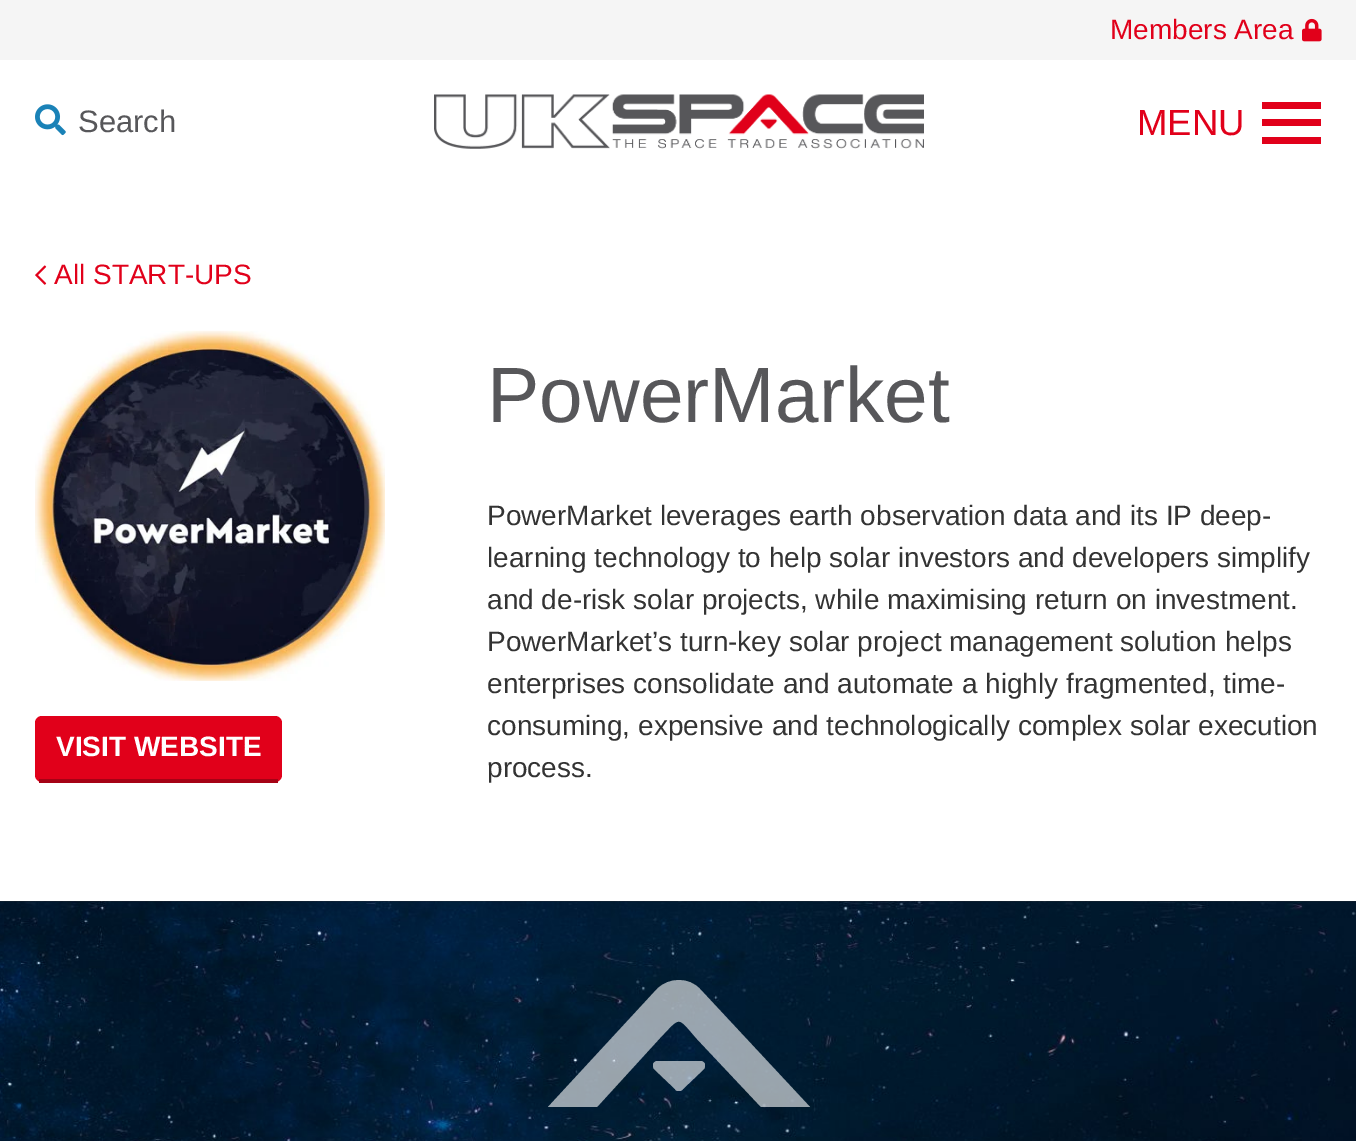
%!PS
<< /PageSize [1356 1141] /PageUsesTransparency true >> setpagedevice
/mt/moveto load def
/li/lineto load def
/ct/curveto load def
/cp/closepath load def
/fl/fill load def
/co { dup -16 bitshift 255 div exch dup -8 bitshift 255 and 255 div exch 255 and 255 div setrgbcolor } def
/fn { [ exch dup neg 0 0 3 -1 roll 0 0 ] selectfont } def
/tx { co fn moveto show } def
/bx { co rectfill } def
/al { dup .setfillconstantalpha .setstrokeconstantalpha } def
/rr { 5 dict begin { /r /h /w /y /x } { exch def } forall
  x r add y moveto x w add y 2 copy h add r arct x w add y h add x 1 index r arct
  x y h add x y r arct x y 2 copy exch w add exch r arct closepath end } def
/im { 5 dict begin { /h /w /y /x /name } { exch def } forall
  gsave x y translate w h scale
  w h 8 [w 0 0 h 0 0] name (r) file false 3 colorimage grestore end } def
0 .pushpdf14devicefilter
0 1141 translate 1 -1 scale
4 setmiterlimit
0 0 1356 1141 16#FFFFFF bx
0 0 1356 60 16#F5F5F5 bx
(media/1.raw) 1302 18 20 24 im
(media/2.raw) 35 104 31 32 im
(media/3.raw) 434 94 490 55 im
1262 119 59 7 16#E1001A bx
1262 102 59 7 16#E1001A bx
1262 137 59 7 16#E1001A bx
(media/4.raw) 35 265 12 20 im
(media/5.raw) 35 330 350 351 im
35 716 247 66 7 rr fl
39 779 239 4 16#A50215 bx
(media/6.raw) 0 901 1356 240 im
0.6 al
16#FFFFFF co
810 1107 mt 700 989 li 689 977 669 977 657 989 ct 548 1107 li 597 1107 li 660 1038 li 681 1016 677 1016 697 1039 ct 761 1107 li cp fl
679 1091 mt 680 1091 682 1091 683 1089 ct 704 1069 li 705 1068 705 1066 705 1064 ct 704 1062 702 1061 701 1061 ct 657 1061 li 656 1061 654 1062 653 1064 ct 653 1066 653 1068 654 1069 ct 675 1089 li 676 1091 677 1091 679 1091 ct cp fl
1 al
(Members Area) 1110 39 /LiberationSans-Regular 28 16#E1001A tx
(Search) 78 132 /LiberationSans-Regular 31 16#57575A tx
(MENU) 1137 135 /LiberationSans-Regular 36.5 16#E1001A tx
(All START-UPS) 54 284 /LiberationSans-Regular 28 16#E1001A tx
(VISIT WEBSITE) 56 756 /LiberationSans-Bold 28 16#FFFFFF tx
(PowerMarket) 487 422 /LiberationSans-Regular 78.5 16#57575A tx
(PowerMarket leverages earth observation data and its IP deep-) 487 525 /LiberationSans-Regular 28 16#333333 tx
(learning technology to help solar investors and developers simplify) 487 567 /LiberationSans-Regular 28 16#333333 tx
(and de-risk solar projects, while maximising return on investment.) 487 609 /LiberationSans-Regular 28 16#333333 tx
(PowerMarket’s turn-key solar project management solution helps) 487 651 /LiberationSans-Regular 28 16#333333 tx
(enterprises consolidate and automate a highly fragmented, time-) 487 693 /LiberationSans-Regular 28 16#333333 tx
(consuming, expensive and technologically complex solar execution) 487 735 /LiberationSans-Regular 28 16#333333 tx
(process.) 487 777 /LiberationSans-Regular 28 16#333333 tx
.poppdf14devicefilter showpage
